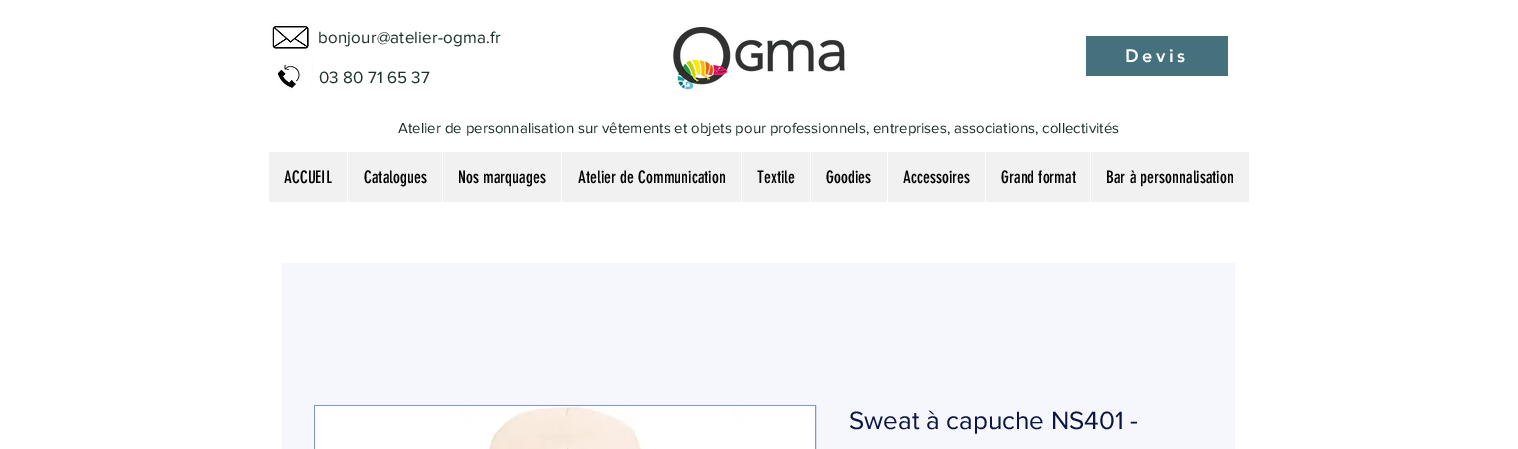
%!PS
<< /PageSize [1518 449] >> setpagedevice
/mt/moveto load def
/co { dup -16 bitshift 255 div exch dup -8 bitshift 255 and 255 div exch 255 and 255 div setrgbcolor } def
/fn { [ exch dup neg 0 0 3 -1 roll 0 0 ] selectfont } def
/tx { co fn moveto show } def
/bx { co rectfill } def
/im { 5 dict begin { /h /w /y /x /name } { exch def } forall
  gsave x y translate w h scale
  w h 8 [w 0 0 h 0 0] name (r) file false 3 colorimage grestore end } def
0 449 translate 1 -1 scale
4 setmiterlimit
0 0 1518 449 16#FFFFFF bx
(media/1.raw) 269 23 41 28 im
(media/2.raw) 673 27 172 63 im
1086 36 142 40 16#45717D bx
(media/3.raw) 277 59 36 31 im
269 152 980 50 16#F1F1F1 bx
347 152 1 50 16#FFFFFF bx
442 152 1 50 16#FFFFFF bx
561 152 1 50 16#FFFFFF bx
741 152 1 50 16#FFFFFF bx
810 152 1 50 16#FFFFFF bx
887 152 1 50 16#FFFFFF bx
985 152 1 50 16#FFFFFF bx
1090 152 1 50 16#FFFFFF bx
282 263 953 186 16#F5F7FD bx
16#7F93DA co
314.5 405.5 501 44 rectstroke
(media/4.raw) 315 406 500 43 im
/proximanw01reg-Regular 17 fn
16#1C2F2B co
318 43 mt .2 0 (bonjour@atelier-ogma.fr) ashow
/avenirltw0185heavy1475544-Black 18 fn
16#FFFFFF co
1125 62 mt 3.5 0 (Devis) ashow
(03 80 71 65 37) 319 83 /proximanw01reg-Regular 17 16#1C2F2B tx
(Atelier de personnalisation sur vêtements et objets pour professionnels, entreprises, associations, collectivités) 398 133 /proximanw01reg-Regular 15 16#1C2F2B tx
(ACCUEIL) 284 183 /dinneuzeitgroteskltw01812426-Regular 17 16#000000 tx
(Catalogues) 364 183 /dinneuzeitgroteskltw01812426-Regular 17 16#000000 tx
(Nos marquages) 458 183 /dinneuzeitgroteskltw01812426-Regular 17 16#000000 tx
(Atelier de Communication) 578 183 /dinneuzeitgroteskltw01812426-Regular 17 16#000000 tx
(Textile) 757 183 /dinneuzeitgroteskltw01812426-Regular 17 16#000000 tx
(Goodies) 826 183 /dinneuzeitgroteskltw01812426-Regular 17 16#000000 tx
(Accessoires) 903 183 /dinneuzeitgroteskltw01812426-Regular 17 16#000000 tx
(Grand format) 1001 183 /dinneuzeitgroteskltw01812426-Regular 17 16#000000 tx
(Bar à personnalisation) 1106 183 /dinneuzeitgroteskltw01812426-Regular 17 16#000000 tx
(Sweat à capuche NS401 -) 849 429 /proximanw01reg-Regular 26 16#0B1742 tx
showpage
